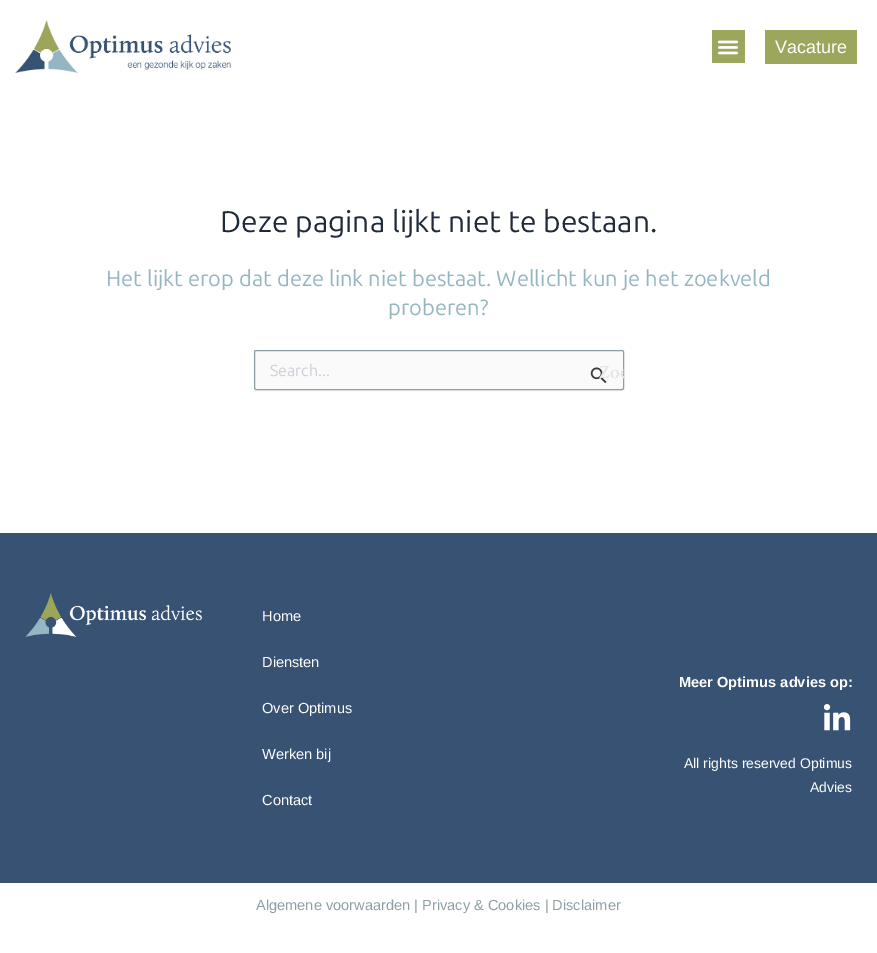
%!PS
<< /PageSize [877 953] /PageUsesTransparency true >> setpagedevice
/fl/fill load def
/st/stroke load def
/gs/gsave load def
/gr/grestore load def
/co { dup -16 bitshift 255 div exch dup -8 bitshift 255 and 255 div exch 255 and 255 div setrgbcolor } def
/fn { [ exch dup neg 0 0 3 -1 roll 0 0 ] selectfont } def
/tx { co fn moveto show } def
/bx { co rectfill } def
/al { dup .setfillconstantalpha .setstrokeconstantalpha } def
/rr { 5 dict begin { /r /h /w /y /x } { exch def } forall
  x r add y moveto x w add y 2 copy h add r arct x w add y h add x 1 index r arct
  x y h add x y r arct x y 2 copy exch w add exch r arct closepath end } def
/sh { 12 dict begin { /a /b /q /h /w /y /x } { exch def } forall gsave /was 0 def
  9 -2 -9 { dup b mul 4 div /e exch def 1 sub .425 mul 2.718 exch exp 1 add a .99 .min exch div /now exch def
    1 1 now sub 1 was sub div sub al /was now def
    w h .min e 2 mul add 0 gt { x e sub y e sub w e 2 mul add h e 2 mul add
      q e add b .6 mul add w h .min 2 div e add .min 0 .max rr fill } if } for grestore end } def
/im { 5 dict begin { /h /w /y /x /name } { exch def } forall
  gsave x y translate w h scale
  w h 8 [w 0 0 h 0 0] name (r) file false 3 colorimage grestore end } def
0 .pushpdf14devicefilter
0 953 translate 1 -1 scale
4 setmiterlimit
0 0 877 953 16#FFFFFF bx
(media/1.raw) 15 20 216 53 im
712 30 33 33 16#9CA65C bx
(media/2.raw) 717 40 21 15 im
765 30 92 34 16#9CA65C bx
16#000000 co
254 351 370 40 2 1 .05 sh
16#FAFAFA co
254.5 350.5 369 39 1.5 rr gs fl gr
16#8C9EA6 co
st
(media/3.raw) 590 367 17 17 im
0 533 877 350 16#375273 bx
(media/4.raw) 25 593 177 44 im
(media/5.raw) 823 704 28 27 im
(Vacature) 775 53 /LiberationSans-Regular 18 16#FFFFFF tx
(Deze pagina lijkt niet te bestaan.) 220 232 /Ubuntu-Regular 30 16#1E293B tx
(Het lijkt erop dat deze link niet bestaat. Wellicht kun je het zoekveld) 106 286 /Ubuntu-Regular 21.9 16#94B5C2 tx
(proberen?) 388 315 /Ubuntu-Regular 21.9 16#94B5C2 tx
(Search...) 270 376 /Ubuntu-Regular 16 16#CBCFD5 tx
gs
579 350 45 44 2 rr clip newpath
(Zoe) 599 378 /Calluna-Bold 18 16#E5E6E6 tx
gr
(Home) 262 621 /LiberationSans-Regular 14.6 16#FFFFFF tx
(Diensten) 262 667 /LiberationSans-Regular 14.6 16#FFFFFF tx
(Over Optimus) 262 713 /LiberationSans-Regular 14.6 16#FFFFFF tx
(Werken bij) 262 759 /LiberationSans-Regular 14.6 16#FFFFFF tx
(Contact) 262 805 /LiberationSans-Regular 14.6 16#FFFFFF tx
(Meer Optimus advies op:) 679 687 /LiberationSans-Bold 14.6 16#FFFFFF tx
(All rights reserved Optimus) 684 768 /LiberationSans-Regular 14 16#FFFFFF tx
(Advies) 810 792 /LiberationSans-Regular 14 16#FFFFFF tx
(Algemene voorwaarden | Privacy & Cookies | Disclaimer) 256 910 /LiberationSans-Regular 14.6 16#8D9FA6 tx
.poppdf14devicefilter showpage
